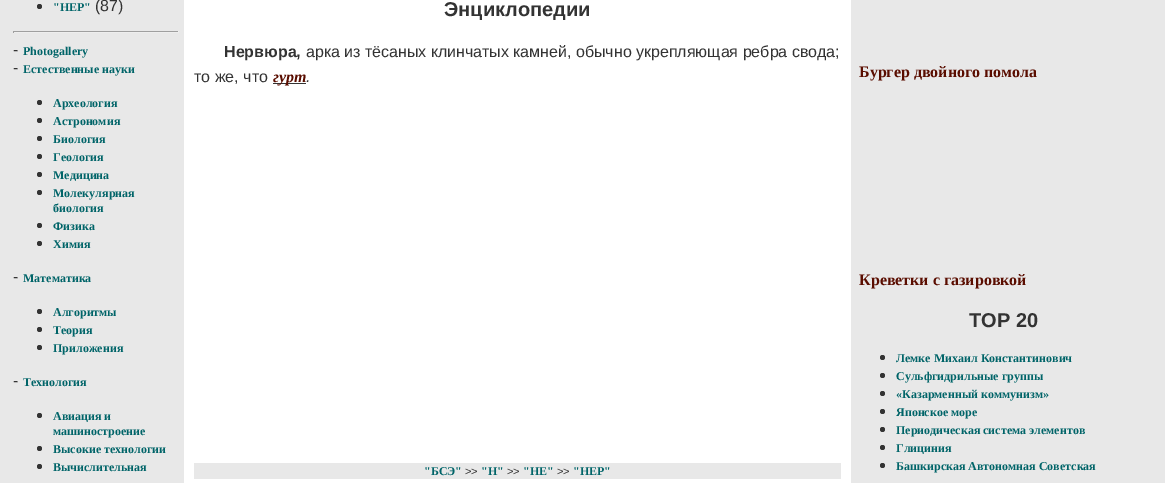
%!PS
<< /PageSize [1165 483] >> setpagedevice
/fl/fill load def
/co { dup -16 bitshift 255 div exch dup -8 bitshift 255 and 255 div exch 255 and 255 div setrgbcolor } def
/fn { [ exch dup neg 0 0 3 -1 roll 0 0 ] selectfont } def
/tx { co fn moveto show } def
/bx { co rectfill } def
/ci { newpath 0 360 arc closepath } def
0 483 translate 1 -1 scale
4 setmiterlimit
0 0 1165 483 16#E8E8E8 bx
16#333333 co
39.5 6.5 2.5 ci fl
13 31 166 1 16#9F9F9F bx
178 31 1 2 16#EEEEEE bx
13 32 166 1 16#EEEEEE bx
13 31 1 2 16#9F9F9F bx
16#333333 co
39.5 102.5 2.5 ci fl
39.5 120.5 2.5 ci fl
39.5 138.5 2.5 ci fl
39.5 156.5 2.5 ci fl
39.5 174.5 2.5 ci fl
39.5 192.5 2.5 ci fl
39.5 225.5 2.5 ci fl
39.5 243.5 2.5 ci fl
39.5 311.5 2.5 ci fl
39.5 329.5 2.5 ci fl
39.5 347.5 2.5 ci fl
39.5 415.5 2.5 ci fl
39.5 448.5 2.5 ci fl
39.5 466.5 2.5 ci fl
184 0 667 483 16#FFFFFF bx
273 83 33 1 16#333333 bx
194 463 647 16 16#E8E8E8 bx
16#333333 co
882.5 357.5 2.5 ci fl
882.5 375.5 2.5 ci fl
882.5 393.5 2.5 ci fl
882.5 411.5 2.5 ci fl
882.5 429.5 2.5 ci fl
882.5 447.5 2.5 ci fl
882.5 465.5 2.5 ci fl
("НЕР") 53 11 /LiberationSerif-Bold 12 16#006468 tx
(\(87\)) 95 11 /LiberationSans-Regular 16 16#333333 tx
(-) 13 55 /LiberationSans-Regular 16 16#333333 tx
(Photogallery) 23 55 /LiberationSerif-Bold 12 16#006468 tx
(-) 13 73 /LiberationSans-Regular 16 16#333333 tx
(Естественные науки) 23 73 /LiberationSerif-Bold 12 16#006468 tx
(Археология) 53 107 /LiberationSerif-Bold 12 16#006468 tx
(Астрономия) 53 125 /LiberationSerif-Bold 12 16#006468 tx
(Биология) 53 143 /LiberationSerif-Bold 12 16#006468 tx
(Геология) 53 161 /LiberationSerif-Bold 12 16#006468 tx
(Медицина) 53 179 /LiberationSerif-Bold 12 16#006468 tx
(Молекулярная) 53 197 /LiberationSerif-Bold 12 16#006468 tx
(биология) 53 212 /LiberationSerif-Bold 12 16#006468 tx
(Физика) 53 230 /LiberationSerif-Bold 12 16#006468 tx
(Химия) 53 248 /LiberationSerif-Bold 12 16#006468 tx
(-) 13 282 /LiberationSans-Regular 16 16#333333 tx
(Математика) 23 282 /LiberationSerif-Bold 12 16#006468 tx
(Алгоритмы) 53 316 /LiberationSerif-Bold 12 16#006468 tx
(Теория) 53 334 /LiberationSerif-Bold 12 16#006468 tx
(Приложения) 53 352 /LiberationSerif-Bold 12 16#006468 tx
(-) 13 386 /LiberationSans-Regular 16 16#333333 tx
(Технология) 23 386 /LiberationSerif-Bold 12 16#006468 tx
(Авиация и) 53 420 /LiberationSerif-Bold 12 16#006468 tx
(машиностроение) 53 435 /LiberationSerif-Bold 12 16#006468 tx
(Высокие технологии) 53 453 /LiberationSerif-Bold 12 16#006468 tx
(Вычислительная) 53 471 /LiberationSerif-Bold 12 16#006468 tx
(Энциклопедии) 444 16 /LiberationSans-Bold 20 16#333333 tx
(Нервюра,) 224 57 /LiberationSans-Bold 16 16#333333 tx
(арка из тёсаных клинчатых камней, обычно укрепляющая ребра свода;) 306 57 /LiberationSans-Regular 16 16#333333 tx
(то же, что) 194 82 /LiberationSans-Regular 16 16#333333 tx
(гурт) 273 82 /LiberationSerif-BoldItalic 16 16#5A0D00 tx
(.) 306 82 /LiberationSans-Italic 16 16#333333 tx
("БСЭ") 424 475 /LiberationSerif-Bold 12 16#006468 tx
(>>) 465 475 /LiberationSans-Regular 11 16#333333 tx
("Н") 481 475 /LiberationSerif-Bold 12 16#006468 tx
(>>) 507 475 /LiberationSans-Regular 11 16#333333 tx
("НЕ") 523 475 /LiberationSerif-Bold 12 16#006468 tx
(>>) 557 475 /LiberationSans-Regular 11 16#333333 tx
("НЕР") 573 475 /LiberationSerif-Bold 12 16#006468 tx
(Бургер двойного помола) 859 77 /LiberationSerif-Bold 16 16#5A0D00 tx
(Креветки с газировкой) 859 285 /LiberationSerif-Bold 16 16#5A0D00 tx
(TOP 20) 969 327 /LiberationSans-Bold 20 16#333333 tx
(Лемке Михаил Константинович) 896 362 /LiberationSerif-Bold 12 16#006468 tx
(Сульфгидрильные группы) 896 380 /LiberationSerif-Bold 12 16#006468 tx
(«Казарменный коммунизм») 896 398 /LiberationSerif-Bold 12 16#006468 tx
(Японское море) 896 416 /LiberationSerif-Bold 12 16#006468 tx
(Периодическая система элементов) 896 434 /LiberationSerif-Bold 12 16#006468 tx
(Глициния) 896 452 /LiberationSerif-Bold 12 16#006468 tx
(Башкирская Автономная Советская) 896 470 /LiberationSerif-Bold 12 16#006468 tx
showpage
